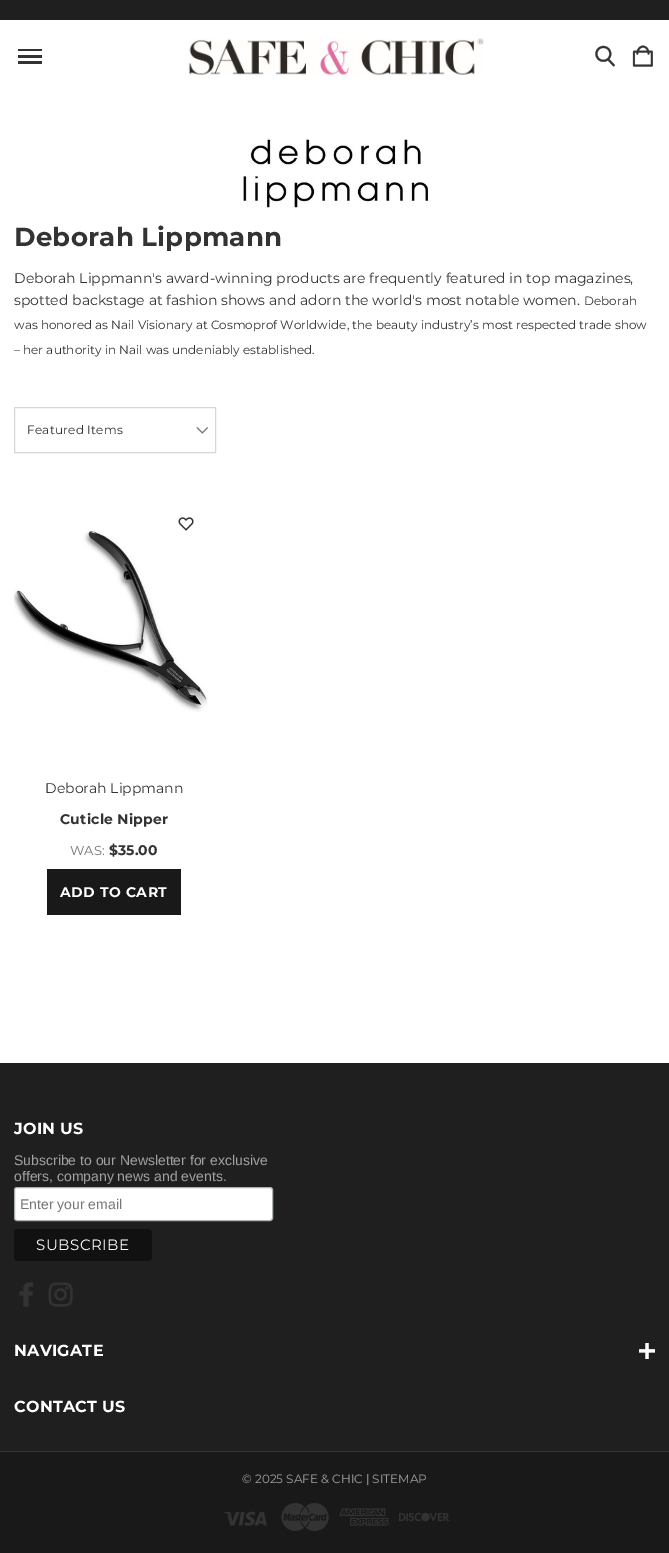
%!PS
<< /PageSize [669 1553] >> setpagedevice
/mt/moveto load def
/fl/fill load def
/st/stroke load def
/gs/gsave load def
/gr/grestore load def
/co { dup -16 bitshift 255 div exch dup -8 bitshift 255 and 255 div exch 255 and 255 div setrgbcolor } def
/fn { [ exch dup neg 0 0 3 -1 roll 0 0 ] selectfont } def
/tx { co fn moveto show } def
/bx { co rectfill } def
/rr { 5 dict begin { /r /h /w /y /x } { exch def } forall
  x r add y moveto x w add y 2 copy h add r arct x w add y h add x 1 index r arct
  x y h add x y r arct x y 2 copy exch w add exch r arct closepath end } def
/im { 5 dict begin { /h /w /y /x /name } { exch def } forall
  gsave x y translate w h scale
  w h 8 [w 0 0 h 0 0] name (r) file false 3 colorimage grestore end } def
0 1553 translate 1 -1 scale
4 setmiterlimit
0 0 669 1553 16#FFFFFF bx
0 0 669 20 16#1F1F1F bx
18 49 24 2 16#333333 bx
18 55 24 3 16#333333 bx
18 61 24 3 16#333333 bx
(media/1.raw) 188 38 296 38 im
(media/2.raw) 595 45 20 22 im
(media/3.raw) 632 45 21 22 im
(media/4.raw) 243 138 186 71 im
16#D7D7D7 co
14.5 407.5 201 45 rectstroke
(media/5.raw) 196 427 12 7 im
(media/6.raw) 178 517 16 14 im
(media/7.raw) 14 531 194 181 im
47 869 134 46 16#191919 bx
0 1063 669 388 16#1F1F1F bx
16#FFFFFF co
14.5 1187.5 258 33 2.5 rr gs fl gr
16#ABB0B2 co
st
16#111111 co
14 1229 138 32 4 rr fl
(media/8.raw) 19 1282 14 25 im
(media/9.raw) 48 1282 25 25 im
(media/10.raw) 639 1343 16 16 im
0 1452 669 101 16#191919 bx
0 1451 669 1 16#363636 bx
(media/11.raw) 224 1511 43 15 im
(media/12.raw) 281 1503 48 28 im
(media/13.raw) 339 1508 50 18 im
(media/14.raw) 399 1512 50 10 im
/Montserrat-Bold 26 fn
16#333333 co
14 246 mt .25 0 (Deborah Lippmann) ashow
(Deborah Lippmann's award-winning products are frequently featured in top magazines,) 14 283 /Montserrat-Regular 14 16#333333 tx
(spotted backstage at fashion shows and adorn the world's most notable women.) 14 305 /Montserrat-Regular 14 16#333333 tx
(Deborah) 584 305 /Montserrat-Regular 12 16#333333 tx
(was honored as Nail Visionary at Cosmoprof Worldwide, the beauty industry’s most respected trade show) 14 329 /Montserrat-Regular 12 16#333333 tx
(– her authority in Nail was undeniably established.) 14 354 /Montserrat-Regular 12 16#333333 tx
27 434 mt .25 0 (Featured Items) ashow
(Deborah Lippmann) 45 793 /Montserrat-Regular 14 16#333333 tx
/Montserrat-Bold 14 fn
60 824 mt .25 0 (Cuticle Nipper) ashow
(WAS:) 70 855 /Montserrat-Regular 13 16#757575 tx
($35.00) 109 855 /Montserrat-Bold 14 16#333333 tx
16#FFFFFF co
60 897 mt .5 0 (ADD TO CART) ashow
/Montserrat-Bold 16 fn
14 1134 mt .25 0 (JOIN US) ashow
(Subscribe to our Newsletter for exclusive) 14 1165 /LiberationSans-Regular 14 16#A2A2A2 tx
(offers, company news and events.) 14 1181 /LiberationSans-Regular 14 16#A2A2A2 tx
(Enter your email) 20 1209 /LiberationSans-Regular 14 16#757575 tx
/Montserrat-Regular 15 fn
16#FFFFFF co
36 1250 mt .5 0 (SUBSCRIBE) ashow
/Montserrat-Bold 16 fn
14 1356 mt .25 0 (NAVIGATE) ashow
14 1412 mt .25 0 (CONTACT US) ashow
(© 2025 SAFE & CHIC | SITEMAP) 242 1483 /Montserrat-Regular 12 16#A2A2A2 tx
showpage
